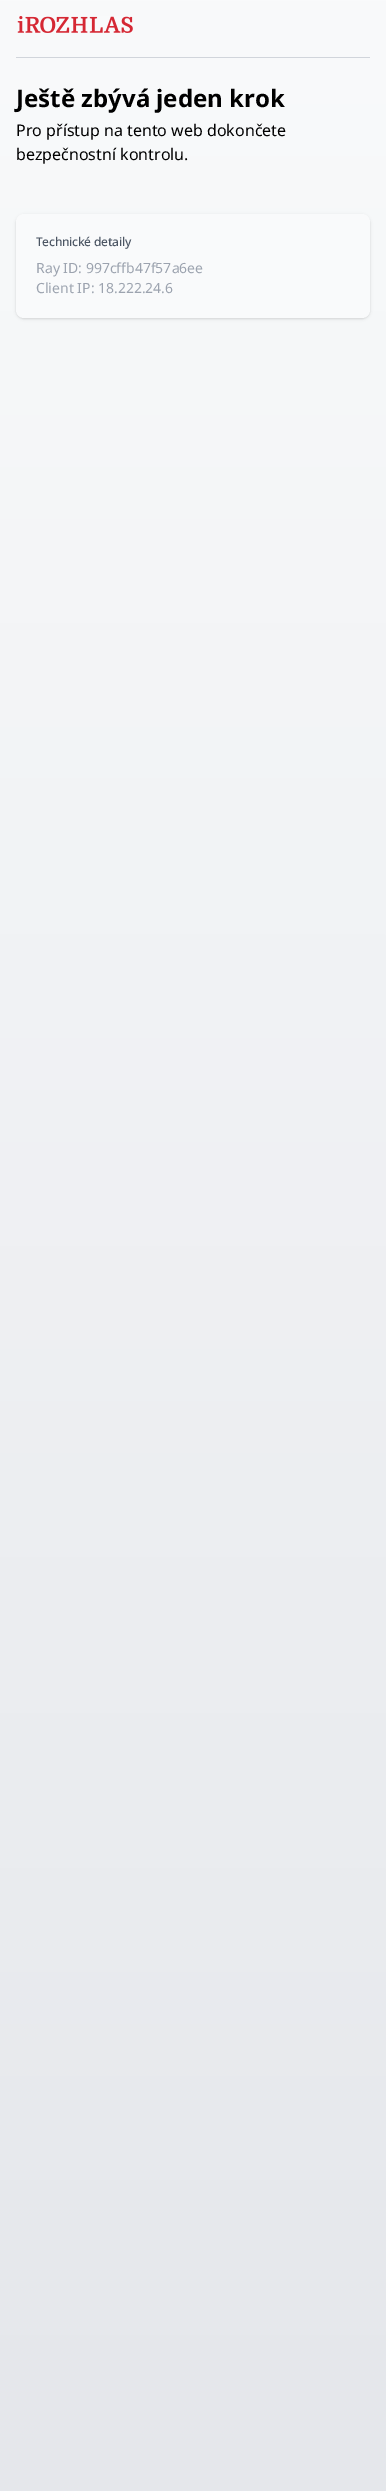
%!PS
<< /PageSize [386 2491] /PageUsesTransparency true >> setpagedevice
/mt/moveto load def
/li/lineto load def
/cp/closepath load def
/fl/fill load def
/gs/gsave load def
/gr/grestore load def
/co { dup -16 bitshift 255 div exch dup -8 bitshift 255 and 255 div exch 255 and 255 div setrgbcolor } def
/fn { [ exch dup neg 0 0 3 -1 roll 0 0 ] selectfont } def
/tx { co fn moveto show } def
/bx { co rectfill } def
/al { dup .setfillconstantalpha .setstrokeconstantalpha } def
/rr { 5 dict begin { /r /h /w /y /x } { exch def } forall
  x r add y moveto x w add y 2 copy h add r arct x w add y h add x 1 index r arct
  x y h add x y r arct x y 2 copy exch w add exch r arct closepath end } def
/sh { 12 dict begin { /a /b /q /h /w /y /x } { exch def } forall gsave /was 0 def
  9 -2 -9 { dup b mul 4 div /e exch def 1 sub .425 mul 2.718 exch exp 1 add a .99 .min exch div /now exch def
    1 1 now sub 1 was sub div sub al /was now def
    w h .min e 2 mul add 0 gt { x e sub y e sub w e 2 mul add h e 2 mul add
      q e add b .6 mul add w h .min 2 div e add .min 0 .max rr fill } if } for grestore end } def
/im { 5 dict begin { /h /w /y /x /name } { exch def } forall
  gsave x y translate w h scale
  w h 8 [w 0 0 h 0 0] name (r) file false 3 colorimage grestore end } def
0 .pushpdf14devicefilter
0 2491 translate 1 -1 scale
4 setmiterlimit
0 0 386 2491 16#FFFFFF bx
gs 0 0 mt 386 0 li 386 2491 li 0 2491 li cp clip newpath
<< /ShadingType 2 /ColorSpace /DeviceRGB /Coords [193 2491 193 0] /Extend [true true] /Function << /FunctionType 2 /Domain [0 1] /C0 [.898 .906 .922] /C1 [.976 .98 .984] /N 1 >> >> shfill gr
16 57 354 1 16#D1D5DB bx
(media/1.raw) 17 16 116 17 im
16#000000 co
17 216 352 102 7 1 .1 sh
16 215 354 104 8 1.5 .1 sh
16#F9FAFB co
16 214 354 104 8 rr fl
(Ještě zbývá jeden krok) 16 107 /NotoSans-Bold 24 16#000000 tx
(Pro přístup na tento web dokončete) 16 136 /NotoSans-Regular 16 16#000000 tx
(bezpečnostní kontrolu.) 16 160 /NotoSans-Regular 16 16#000000 tx
/NotoSans-Medium 12 fn
16#4B5563 co
36 246 mt -.25 0 (Technické detaily) ashow
(Ray ID: 997cffb47f57a6ee) 36 273 /NotoSans-Regular 14 16#9CA3AF tx
(Client IP: 18.222.24.6) 36 293 /NotoSans-Regular 14 16#9CA3AF tx
.poppdf14devicefilter showpage
